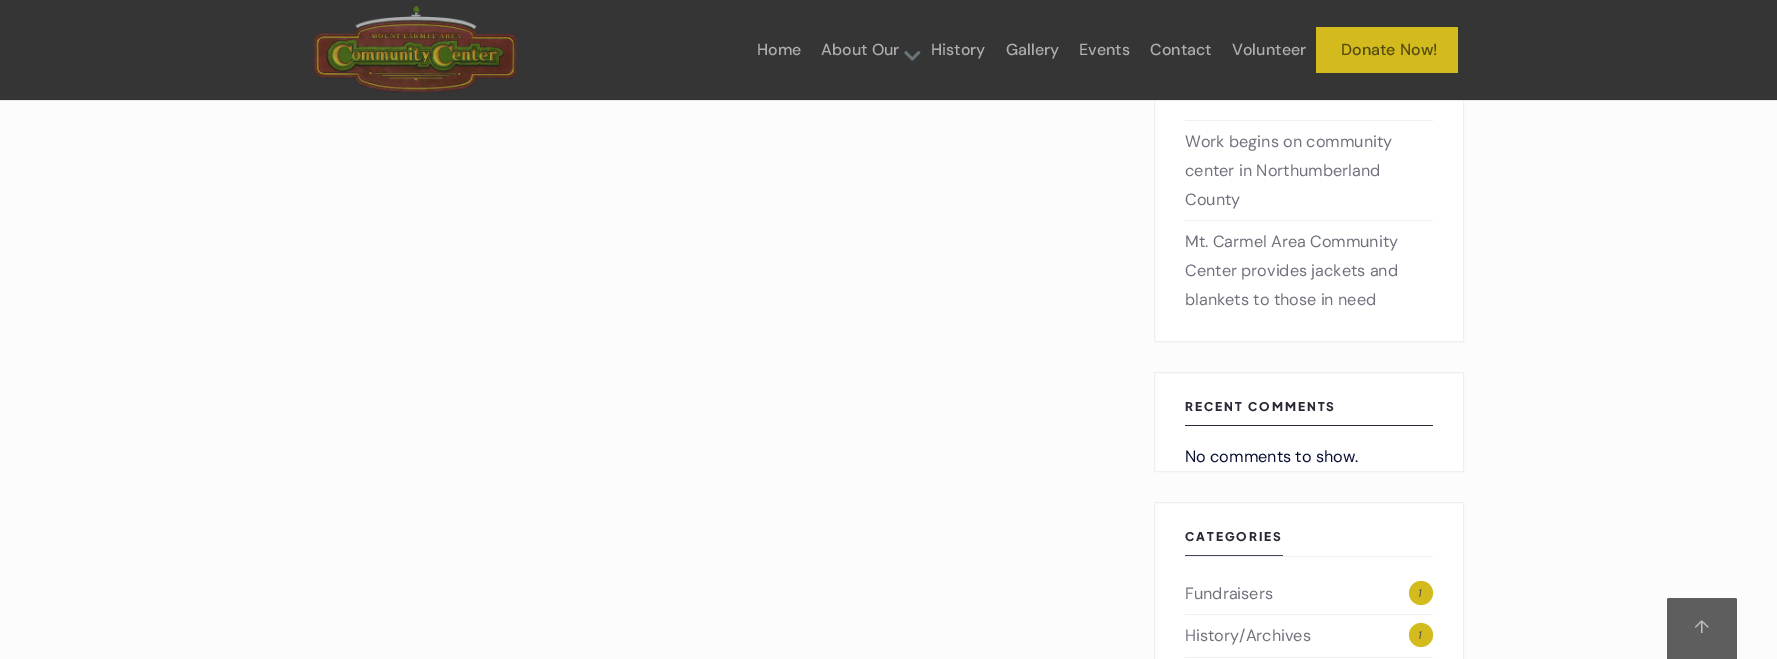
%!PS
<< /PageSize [1777 659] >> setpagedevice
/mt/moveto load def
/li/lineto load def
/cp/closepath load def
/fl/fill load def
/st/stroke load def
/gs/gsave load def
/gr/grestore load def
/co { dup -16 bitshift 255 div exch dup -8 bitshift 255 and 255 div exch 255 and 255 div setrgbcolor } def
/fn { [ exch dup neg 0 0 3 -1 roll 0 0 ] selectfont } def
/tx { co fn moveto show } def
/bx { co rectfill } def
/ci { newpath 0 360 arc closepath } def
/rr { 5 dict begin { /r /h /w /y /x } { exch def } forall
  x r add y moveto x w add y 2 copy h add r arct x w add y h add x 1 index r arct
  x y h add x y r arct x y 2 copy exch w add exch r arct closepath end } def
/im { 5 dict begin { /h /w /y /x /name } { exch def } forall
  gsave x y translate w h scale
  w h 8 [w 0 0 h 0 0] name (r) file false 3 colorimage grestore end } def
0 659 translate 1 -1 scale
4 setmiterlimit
0 0 1777 659 16#FCFCFC bx
1155 101 308 240 16#FFFFFF bx
16#EFEFEF co
1154.5 -.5 309 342 rectstroke
0 0 1777 100 16#353535 bx
0 100 1777 1 16#EAEAEA bx
(media/1.raw) 313 5 204 88 im
(media/2.raw) 904 51 17 10 im
1316 27 142 46 16#D3BB1D bx
1185 120 248 1 16#EFEFEF bx
1185 220 248 1 16#EFEFEF bx
16#FFFFFF co
1154.5 372.5 mt 1463.5 372.5 li 1463.5 471.5 li 1154.5 471.5 li cp gs fl gr
16#EFEFEF co
st
1185 425 248 1 16#292A35 bx
16#FFFFFF co
1154.5 502.5 mt 1463.5 502.5 li 1463.5 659.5 li 1154.5 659.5 li cp gs fl gr
16#EFEFEF co
st
1185 556 248 1 16#EFEFEF bx
1185 555 98 1 16#45455B bx
16#D3BB1D co
1421 593 12 ci fl
1185 614 248 1 16#EFEFEF bx
16#D3BB1D co
1421 635 12 ci fl
1185 657 248 1 16#EFEFEF bx
16#5E5E5E co
1667 598 70 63 2 rr fl
(Home) 757 55 /DMSans-Medium 16 16#AEAEAE tx
(About Our) 821 55 /DMSans-Medium 16 16#AEAEAE tx
(History) 931 55 /DMSans-Medium 16 16#AEAEAE tx
(Gallery) 1006 55 /DMSans-Medium 16 16#AEAEAE tx
(Events) 1079 55 /DMSans-Medium 16 16#AEAEAE tx
(Contact) 1150 55 /DMSans-Medium 16 16#AEAEAE tx
(Volunteer) 1232 55 /DMSans-Medium 16 16#AEAEAE tx
(Donate Now!) 1341 55 /DMSans-Medium 16 16#544B0C tx
(Work begins on community) 1185 147 /DMSans-Regular 16.25 16#71707D tx
(center in Northumberland) 1185 176 /DMSans-Regular 16.25 16#71707D tx
(County) 1185 205 /DMSans-Regular 16.25 16#71707D tx
(Mt. Carmel Area Community) 1185 247 /DMSans-Regular 16.25 16#71707D tx
(Center provides jackets and) 1185 276 /DMSans-Regular 16.25 16#71707D tx
(blankets to those in need) 1185 305 /DMSans-Regular 16.25 16#71707D tx
/PlusJakartaSans-ExtraBold 12 fn
16#292A35 co
1185 411 mt 2 0 (RECENT COMMENTS) ashow
(No comments to show.) 1185 462 /DMSans-Regular 16.25 16#080F33 tx
/PlusJakartaSans-ExtraBold 12 fn
16#292A35 co
1185 541 mt 2 0 (CATEGORIES) ashow
(Fundraisers) 1185 599 /DMSans-Regular 16.25 16#71707D tx
(1) 1418 597 /DMSans-Italic 11 16#494949 tx
(History/Archives) 1185 641 /DMSans-Regular 16.25 16#71707D tx
(1) 1418 639 /DMSans-Italic 11 16#494949 tx
(↑) 1694 633 /DMSans-Regular 18 16#BFBFBF tx
showpage
